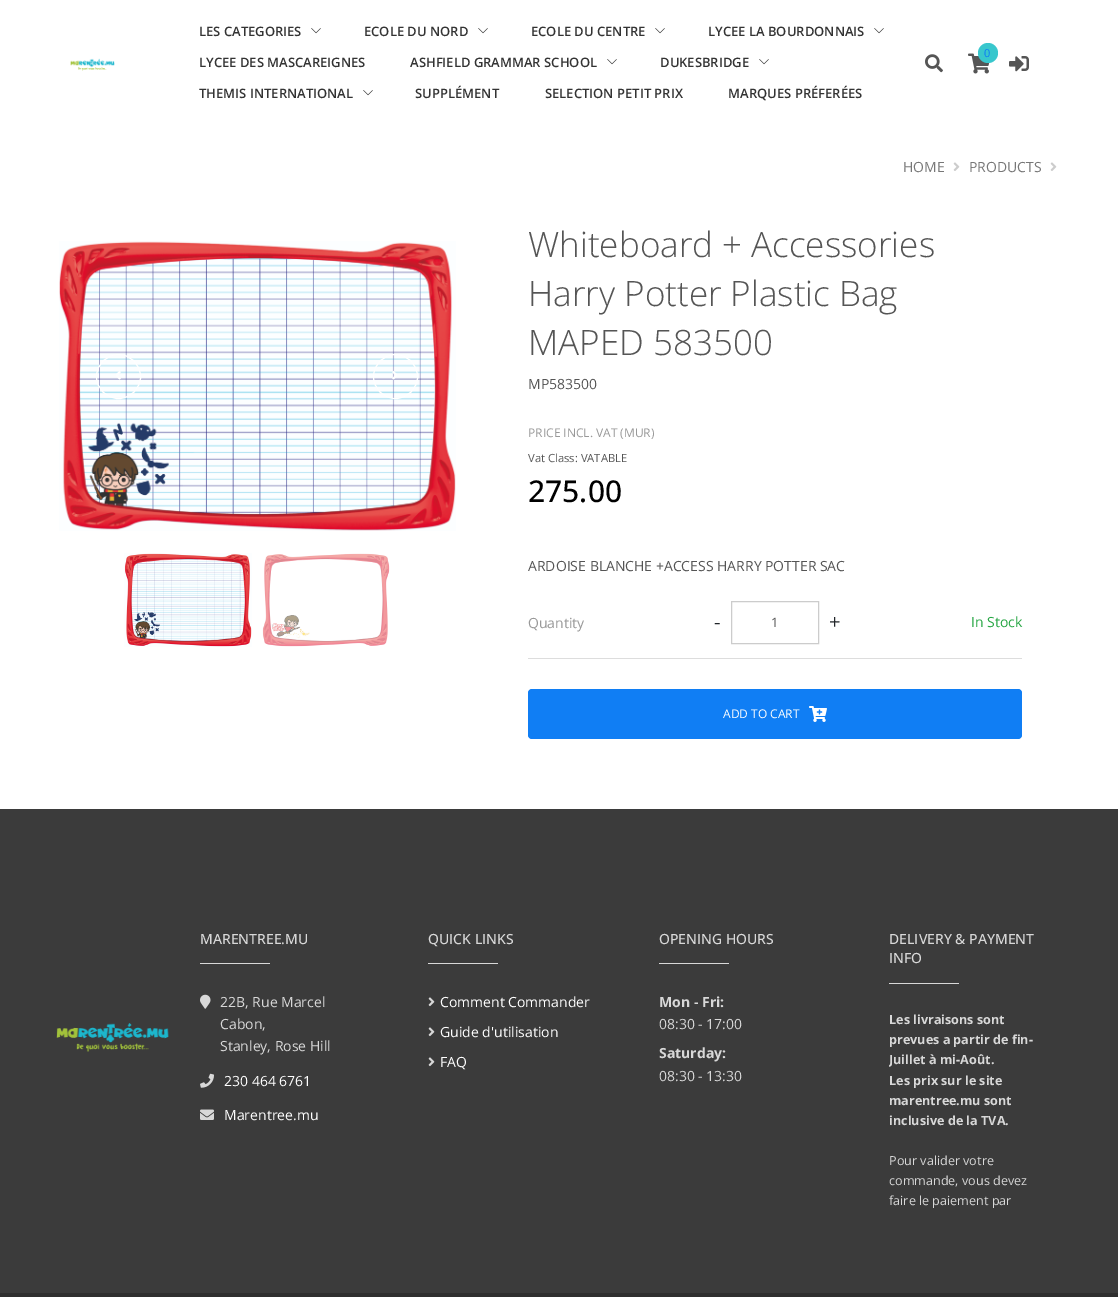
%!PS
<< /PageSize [1118 1297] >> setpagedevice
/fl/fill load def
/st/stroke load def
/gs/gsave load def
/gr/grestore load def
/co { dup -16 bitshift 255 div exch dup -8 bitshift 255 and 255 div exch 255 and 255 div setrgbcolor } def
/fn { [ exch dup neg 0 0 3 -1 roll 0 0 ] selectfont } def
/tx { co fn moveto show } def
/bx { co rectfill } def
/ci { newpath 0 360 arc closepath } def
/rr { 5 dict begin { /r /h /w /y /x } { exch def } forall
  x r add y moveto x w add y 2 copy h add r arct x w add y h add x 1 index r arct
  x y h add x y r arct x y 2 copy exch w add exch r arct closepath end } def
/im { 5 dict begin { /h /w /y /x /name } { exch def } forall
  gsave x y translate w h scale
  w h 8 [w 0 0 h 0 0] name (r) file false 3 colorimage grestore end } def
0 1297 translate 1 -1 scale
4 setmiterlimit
0 0 1118 1297 16#FFFFFF bx
(media/1.raw) 311 28 10 6 im
(media/1.raw) 478 28 10 6 im
(media/1.raw) 655 28 10 6 im
(media/1.raw) 874 28 10 6 im
(media/1.raw) 607 59 10 6 im
(media/1.raw) 759 59 10 6 im
(media/1.raw) 363 90 10 6 im
(media/2.raw) 925 54 18 19 im
(media/3.raw) 968 53 22 21 im
16#38C7CD co
988 53 10 ci fl
(media/4.raw) 1009 56 20 16 im
(media/5.raw) 70 58 45 13 im
(media/6.raw) 953 162 7 9 im
(media/6.raw) 1050 162 7 9 im
(media/7.raw) 59 241 397 290 im
16#FFFFFF co
118.5 376.5 22 ci st
(media/8.raw) 116 371 5 9 im
395.5 376.5 22 ci st
(media/9.raw) 392 371 5 9 im
(media/10.raw) 124 553 128 94 im
(media/11.raw) 262 553 128 94 im
528 658 494 1 16#DDDDDD bx
16#CCCCCC co
731.5 601.5 87 42 rectstroke
16#107EF4 co
528 689 494 50 4 rr fl
(media/12.raw) 809 706 18 16 im
0 809 1118 484 16#3B3B3B bx
(media/13.raw) 56 1023 113 29 im
200 963 70 1 16#D8D8D8 bx
(media/14.raw) 200 994 11 15 im
(media/15.raw) 200 1073 14 15 im
(media/16.raw) 200 1109 14 11 im
428 963 70 1 16#D8D8D8 bx
(media/17.raw) 428 997 7 10 im
(media/17.raw) 428 1027 7 10 im
(media/17.raw) 428 1057 7 10 im
659 963 70 1 16#D8D8D8 bx
889 983 70 1 16#D8D8D8 bx
0 1293 1118 4 16#2F2F2F bx
(LES CATEGORIES) 199 36 /OpenSans-SemiBold 13 16#333333 tx
(ECOLE DU NORD) 364 36 /OpenSans-SemiBold 13 16#333333 tx
(ECOLE DU CENTRE) 531 36 /OpenSans-SemiBold 13 16#333333 tx
(LYCEE LA BOURDONNAIS) 708 36 /OpenSans-SemiBold 13 16#333333 tx
(LYCEE DES MASCAREIGNES) 199 67 /OpenSans-SemiBold 13 16#333333 tx
(ASHFIELD GRAMMAR SCHOOL) 410 67 /OpenSans-SemiBold 13 16#333333 tx
(DUKESBRIDGE) 660 67 /OpenSans-SemiBold 13 16#333333 tx
(THEMIS INTERNATIONAL) 199 98 /OpenSans-SemiBold 13 16#333333 tx
(SUPPLÉMENT) 415 98 /OpenSans-SemiBold 13 16#333333 tx
(SELECTION PETIT PRIX) 545 98 /OpenSans-SemiBold 13 16#333333 tx
(MARQUES PRÉFERÉES) 728 98 /OpenSans-SemiBold 13 16#333333 tx
(0) 984 57 /OpenSans-Regular 11 16#107EF4 tx
(HOME) 903 172 /OpenSans-Regular 14 16#777777 tx
(PRODUCTS) 969 172 /OpenSans-Regular 14 16#777777 tx
(Whiteboard + Accessories) 528 257 /OpenSans-Light 35 16#555555 tx
(Harry Potter Plastic Bag) 528 306 /OpenSans-Light 35 16#555555 tx
(MAPED 583500) 528 355 /OpenSans-Light 35 16#555555 tx
(MP583500) 528 389 /OpenSans-Regular 14 16#555555 tx
(PRICE INCL. VAT \(MUR\)) 528 437 /OpenSans-Regular 12 16#999999 tx
(Vat Class: VATABLE) 528 462 /OpenSans-Regular 11.25 16#555555 tx
(275.00) 528 502 /OpenSans-Medium 30 16#000000 tx
(ARDOISE BLANCHE +ACCESS HARRY POTTER SAC) 528 571 /OpenSans-Regular 14 16#555555 tx
(Quantity) 528 628 /OpenSans-Regular 14 16#999999 tx
(-) 714 629 /OpenSans-Regular 20 16#212529 tx
(1) 771 627 /OpenSans-Regular 13 16#555555 tx
(+) 829 629 /OpenSans-Regular 20 16#212529 tx
(In Stock) 971 627 /OpenSans-Regular 14 16#28A745 tx
(ADD TO CART) 723 718 /OpenSans-Regular 12 16#FFFFFF tx
(MARENTREE.MU) 200 944 /OpenSans-Medium 14 16#D8D8D8 tx
(22B, Rue Marcel) 220 1007 /OpenSans-Regular 14 16#D8D8D8 tx
(Cabon,) 220 1029 /OpenSans-Regular 14 16#D8D8D8 tx
(Stanley, Rose Hill) 220 1051 /OpenSans-Regular 14 16#D8D8D8 tx
(230 464 6761) 224 1086 /OpenSans-Regular 14 16#FFFFFF tx
(Marentree.mu) 224 1120 /OpenSans-Regular 14 16#FFFFFF tx
(QUICK LINKS) 428 944 /OpenSans-Medium 14 16#D8D8D8 tx
(Comment Commander) 440 1007 /OpenSans-Regular 14 16#FFFFFF tx
(Guide d'utilisation) 440 1037 /OpenSans-Regular 14 16#FFFFFF tx
(FAQ) 440 1067 /OpenSans-Regular 14 16#FFFFFF tx
(OPENING HOURS) 659 944 /OpenSans-Medium 14 16#D8D8D8 tx
(Mon - Fri:) 659 1007 /OpenSans-Bold 14 16#D8D8D8 tx
(08:30 - 17:00) 659 1029 /OpenSans-Regular 14 16#D8D8D8 tx
(Saturday:) 659 1058 /OpenSans-Bold 14 16#D8D8D8 tx
(08:30 - 13:30) 659 1081 /OpenSans-Regular 14 16#D8D8D8 tx
(DELIVERY & PAYMENT) 889 944 /OpenSans-Medium 14 16#D8D8D8 tx
(INFO) 889 963 /OpenSans-Medium 14 16#D8D8D8 tx
(Les livraisons sont) 889 1024 /OpenSans-Bold 12.6 16#D8D8D8 tx
(prevues a partir de fin-) 889 1044 /OpenSans-Bold 12.6 16#D8D8D8 tx
gs
889 1010 146 200 rectclip
(Juillet à mi-Août.) 889 1064 /OpenSans-Bold 12.6 16#D8D8D8 tx
gr
(Les prix sur le site) 889 1085 /OpenSans-Bold 12.6 16#D8D8D8 tx
(marentree.mu sont) 889 1105 /OpenSans-Bold 12.6 16#D8D8D8 tx
(inclusive de la TVA.) 889 1125 /OpenSans-Bold 12.6 16#D8D8D8 tx
(Pour valider votre) 889 1165 /OpenSans-Regular 12.6 16#D8D8D8 tx
(commande, vous devez) 889 1185 /OpenSans-Regular 12.6 16#D8D8D8 tx
(faire le paiement par) 889 1205 /OpenSans-Regular 12.6 16#D8D8D8 tx
showpage
